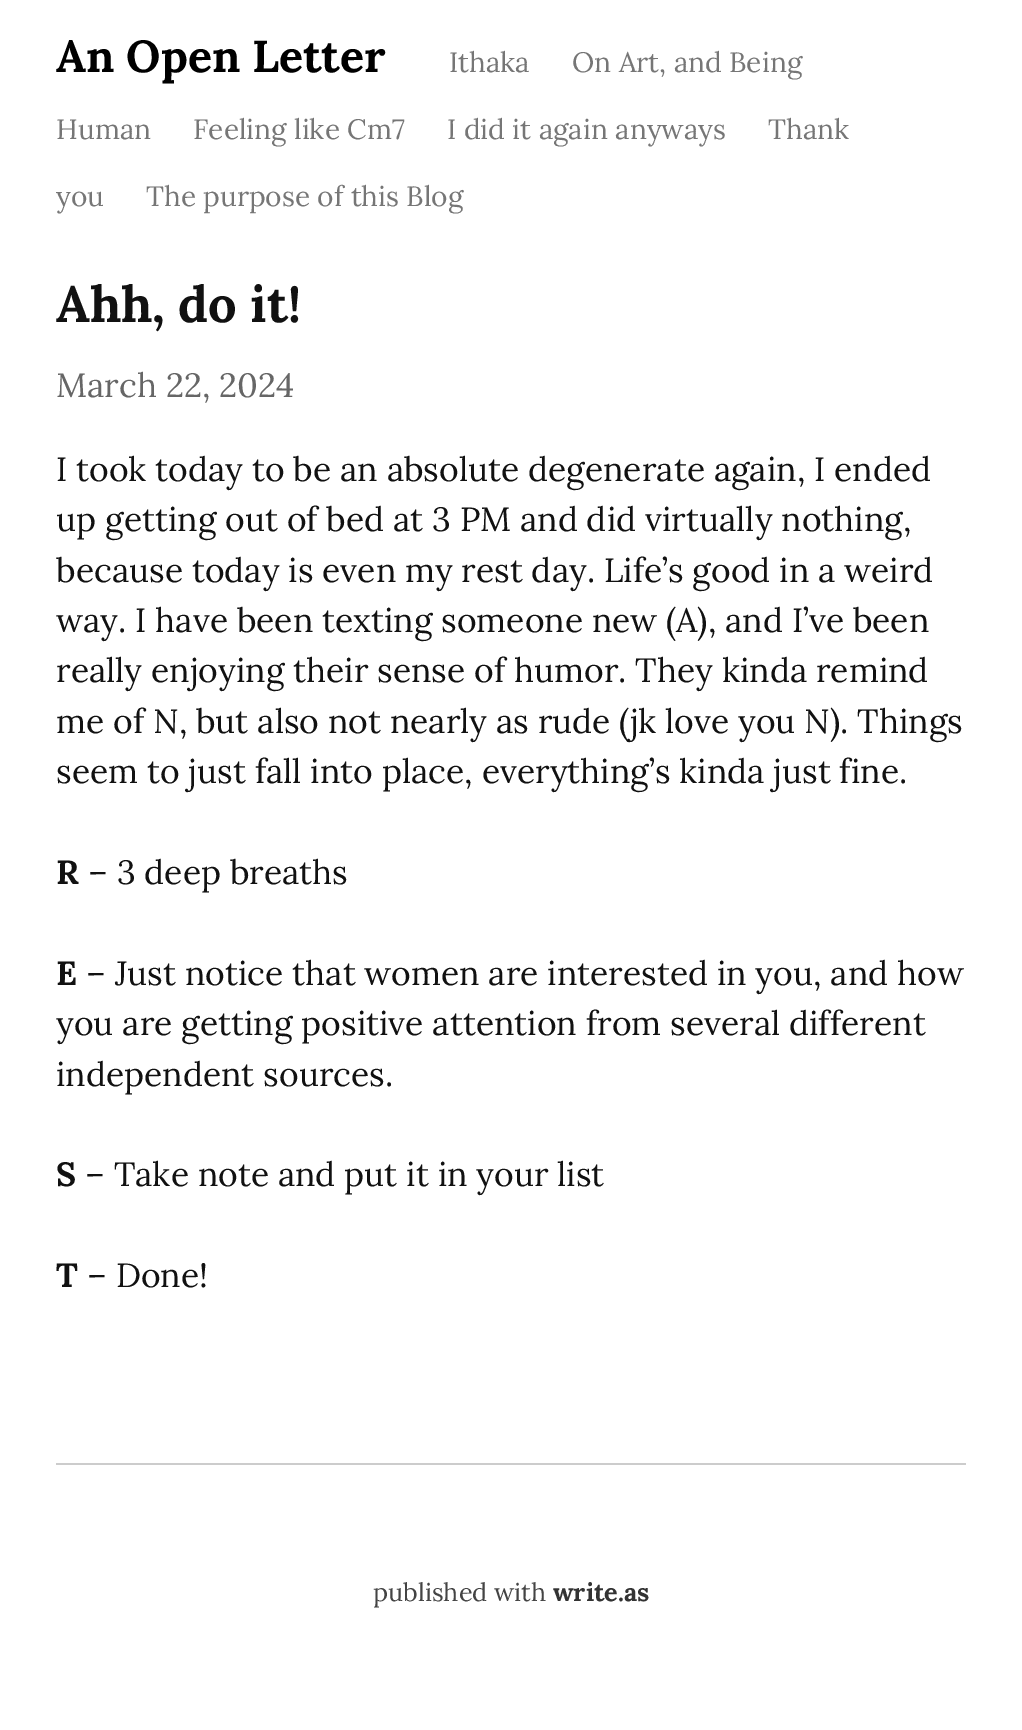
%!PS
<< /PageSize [1022 1730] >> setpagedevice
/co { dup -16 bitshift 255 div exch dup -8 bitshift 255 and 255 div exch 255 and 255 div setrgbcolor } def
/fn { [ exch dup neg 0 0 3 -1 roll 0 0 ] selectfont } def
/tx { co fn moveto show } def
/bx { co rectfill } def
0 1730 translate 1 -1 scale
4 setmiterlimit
0 0 1022 1730 16#FFFFFF bx
56 1463 910 2 16#CCCCCC bx
(An Open Letter) 56 72 /Lora-Bold 44.75 16#000000 tx
(Ithaka) 449 72 /Lora-Regular 28 16#767676 tx
(On Art, and Being) 572 72 /Lora-Regular 28 16#767676 tx
(Human) 56 139 /Lora-Regular 28 16#767676 tx
(Feeling like Cm7) 193 139 /Lora-Regular 28 16#767676 tx
(I did it again anyways) 447 139 /Lora-Regular 28 16#767676 tx
(Thank) 768 139 /Lora-Regular 28 16#767676 tx
(you) 56 206 /Lora-Regular 28 16#767676 tx
(The purpose of this Blog) 146 206 /Lora-Regular 28 16#767676 tx
(Ahh, do it!) 56 322 /Lora-Bold 50.5 16#111111 tx
(March 22, 2024) 56 397 /Lora-Regular 33.6 16#666666 tx
(I took today to be an absolute degenerate again, I ended) 56 481 /Lora-Regular 33.6 16#111111 tx
(up getting out of bed at 3 PM and did virtually nothing,) 56 531 /Lora-Regular 33.6 16#111111 tx
(because today is even my rest day. Life’s good in a weird) 56 582 /Lora-Regular 33.6 16#111111 tx
(way. I have been texting someone new \(A\), and I’ve been) 56 632 /Lora-Regular 33.6 16#111111 tx
(really enjoying their sense of humor. They kinda remind) 56 682 /Lora-Regular 33.6 16#111111 tx
(me of N, but also not nearly as rude \(jk love you N\). Things) 56 733 /Lora-Regular 33.6 16#111111 tx
(seem to just fall into place, everything’s kinda just fine.) 56 783 /Lora-Regular 33.6 16#111111 tx
(R) 56 884 /Lora-Bold 33.6 16#111111 tx
(– 3 deep breaths) 88 884 /Lora-Regular 33.6 16#111111 tx
(E) 56 985 /Lora-Bold 33.6 16#111111 tx
(– Just notice that women are interested in you, and how) 86 985 /Lora-Regular 33.6 16#111111 tx
(you are getting positive attention from several different) 56 1035 /Lora-Regular 33.6 16#111111 tx
(independent sources.) 56 1086 /Lora-Regular 33.6 16#111111 tx
(S) 56 1186 /Lora-Bold 33.6 16#111111 tx
(– Take note and put it in your list) 85 1186 /Lora-Regular 33.6 16#111111 tx
(T) 56 1287 /Lora-Bold 33.6 16#111111 tx
(– Done!) 87 1287 /Lora-Regular 33.6 16#111111 tx
(published with) 373 1601 /Lora-Regular 25.25 16#444444 tx
(write.as) 553 1601 /Lora-Bold 25.25 16#333333 tx
showpage
